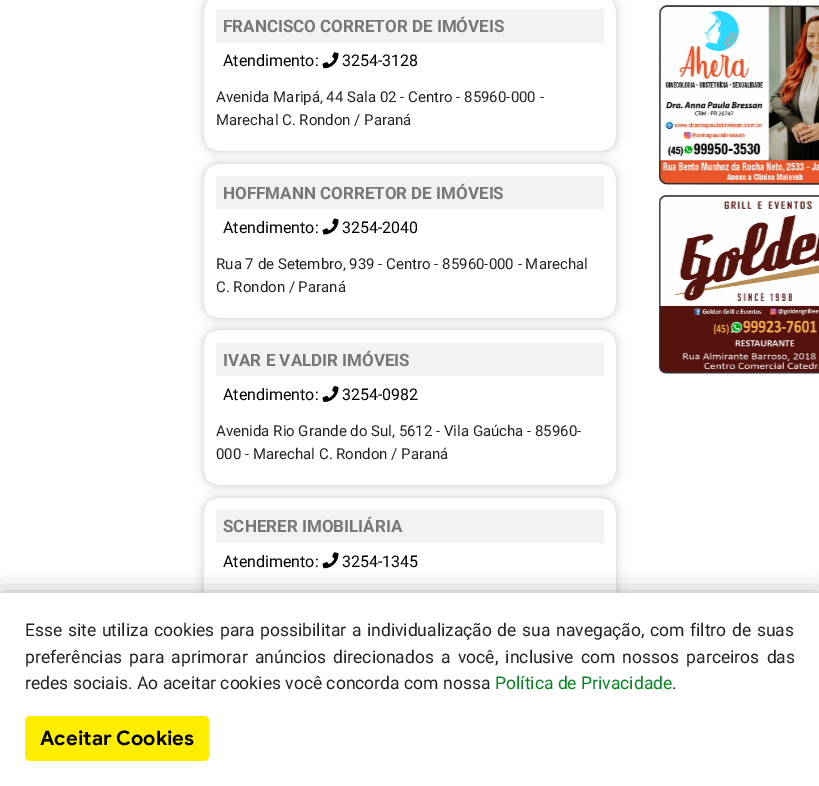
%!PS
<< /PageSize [819 786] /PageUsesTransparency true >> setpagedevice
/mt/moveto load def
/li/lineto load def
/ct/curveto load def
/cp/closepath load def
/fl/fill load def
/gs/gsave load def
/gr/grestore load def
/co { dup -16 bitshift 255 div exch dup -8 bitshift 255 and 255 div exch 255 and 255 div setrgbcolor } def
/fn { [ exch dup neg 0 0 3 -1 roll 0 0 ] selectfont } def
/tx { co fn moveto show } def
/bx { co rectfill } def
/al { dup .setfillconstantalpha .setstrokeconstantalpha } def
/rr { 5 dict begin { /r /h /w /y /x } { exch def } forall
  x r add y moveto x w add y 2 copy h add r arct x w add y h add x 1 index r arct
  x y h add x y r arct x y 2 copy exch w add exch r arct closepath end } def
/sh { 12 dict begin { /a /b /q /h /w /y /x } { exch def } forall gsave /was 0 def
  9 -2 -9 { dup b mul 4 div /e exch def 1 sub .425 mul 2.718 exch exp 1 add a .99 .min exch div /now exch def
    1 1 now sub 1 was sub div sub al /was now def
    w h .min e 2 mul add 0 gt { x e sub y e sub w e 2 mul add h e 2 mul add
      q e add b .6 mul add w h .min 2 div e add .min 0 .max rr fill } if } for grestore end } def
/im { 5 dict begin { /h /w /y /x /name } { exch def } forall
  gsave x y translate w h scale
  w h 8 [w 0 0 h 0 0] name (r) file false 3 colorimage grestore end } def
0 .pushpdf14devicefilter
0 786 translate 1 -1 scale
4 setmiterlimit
0 0 819 786 16#FFFFFF bx
gs
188 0 mt 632 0 li 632 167 li 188 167 li cp 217 -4 mt 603 -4 li 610 -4 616 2 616 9 ct 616 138 li 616 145 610 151 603 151 ct 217 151 li 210 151 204 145 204 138 ct 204 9 li 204 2 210 -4 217 -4 ct cp eoclip newpath
16#000000 co
204 -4 412 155 13 5 .2 sh
gr
216 9 388 34 16#F2F2F2 bx
(media/1.raw) 322 52 17 17 im
gs
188 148 mt 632 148 li 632 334 li 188 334 li cp 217 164 mt 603 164 li 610 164 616 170 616 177 ct 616 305 li 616 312 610 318 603 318 ct 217 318 li 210 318 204 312 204 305 ct 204 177 li 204 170 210 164 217 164 ct cp eoclip newpath
16#000000 co
204 164 412 154 13 5 .2 sh
gr
216 176 388 33 16#F2F2F2 bx
(media/2.raw) 322 218 17 17 im
gs
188 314 mt 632 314 li 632 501 li 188 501 li cp 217 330 mt 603 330 li 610 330 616 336 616 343 ct 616 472 li 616 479 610 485 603 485 ct 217 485 li 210 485 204 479 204 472 ct 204 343 li 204 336 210 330 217 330 ct cp eoclip newpath
16#000000 co
204 330 412 155 13 5 .2 sh
gr
216 343 388 33 16#F2F2F2 bx
(media/3.raw) 322 386 17 16 im
gs
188 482 mt 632 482 li 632 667 li 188 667 li cp 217 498 mt 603 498 li 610 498 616 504 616 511 ct 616 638 li 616 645 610 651 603 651 ct 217 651 li 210 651 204 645 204 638 ct 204 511 li 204 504 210 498 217 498 ct cp eoclip newpath
16#000000 co
204 498 412 153 13 5 .2 sh
gr
216 510 388 33 16#F2F2F2 bx
(media/1.raw) 322 552 17 17 im
(media/4.raw) 659 5 160 180 im
(media/5.raw) 659 195 160 179 im
16#000000 co
0 593 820 193 0 12.5 .3 sh
0 593 819 193 16#FFFFFF bx
16#FEED01 co
25 716 184 45 5 rr fl
(FRANCISCO CORRETOR DE IMÓVEIS) 223 32 /Roboto-Bold 17 16#777777 tx
(Atendimento:) 223 66 /Roboto-Regular 16 16#000000 tx
(3254-3128) 342 66 /Roboto-Regular 16 16#000000 tx
(Avenida Maripá, 44 Sala 02 - Centro - 85960-000 -) 216 102 /Roboto-Regular 15 16#212529 tx
(Marechal C. Rondon / Paraná) 216 125 /Roboto-Regular 15 16#212529 tx
(HOFFMANN CORRETOR DE IMÓVEIS) 223 199 /Roboto-Bold 17 16#777777 tx
(Atendimento:) 223 233 /Roboto-Regular 16 16#000000 tx
(3254-2040) 342 233 /Roboto-Regular 16 16#000000 tx
(Rua 7 de Setembro, 939 - Centro - 85960-000 - Marechal) 216 269 /Roboto-Regular 15 16#212529 tx
(C. Rondon / Paraná) 216 292 /Roboto-Regular 15 16#212529 tx
(IVAR E VALDIR IMÓVEIS) 223 366 /Roboto-Bold 17 16#777777 tx
(Atendimento:) 223 400 /Roboto-Regular 16 16#000000 tx
(3254-0982) 342 400 /Roboto-Regular 16 16#000000 tx
(Avenida Rio Grande do Sul, 5612 - Vila Gaúcha - 85960-) 216 436 /Roboto-Regular 15 16#212529 tx
(000 - Marechal C. Rondon / Paraná) 216 459 /Roboto-Regular 15 16#212529 tx
(SCHERER IMOBILIÁRIA) 223 532 /Roboto-Bold 17 16#777777 tx
(Atendimento:) 223 567 /Roboto-Regular 16 16#000000 tx
(3254-1345) 342 567 /Roboto-Regular 16 16#000000 tx
/Roboto-Regular 17.5 fn
16#212529 co
25 636 mt 1.25 0 32 (Esse site utiliza cookies para possibilitar a individualização de sua navegação, com filtro de suas) widthshow
25 663 mt 2.9 0 32 (preferências para aprimorar anúncios direcionados a você, inclusive com nossos parceiros das) widthshow
(redes sociais. Ao aceitar cookies você concorda com nossa) 25 689 /Roboto-Regular 17.5 16#212529 tx
(Política de Privacidade) 495 689 /Roboto-Regular 17.5 16#04851F tx
(.) 672 689 /Roboto-Regular 17.5 16#212529 tx
(Aceitar Cookies) 40 745 /GoogleSans-Bold 20 16#000000 tx
.poppdf14devicefilter showpage
